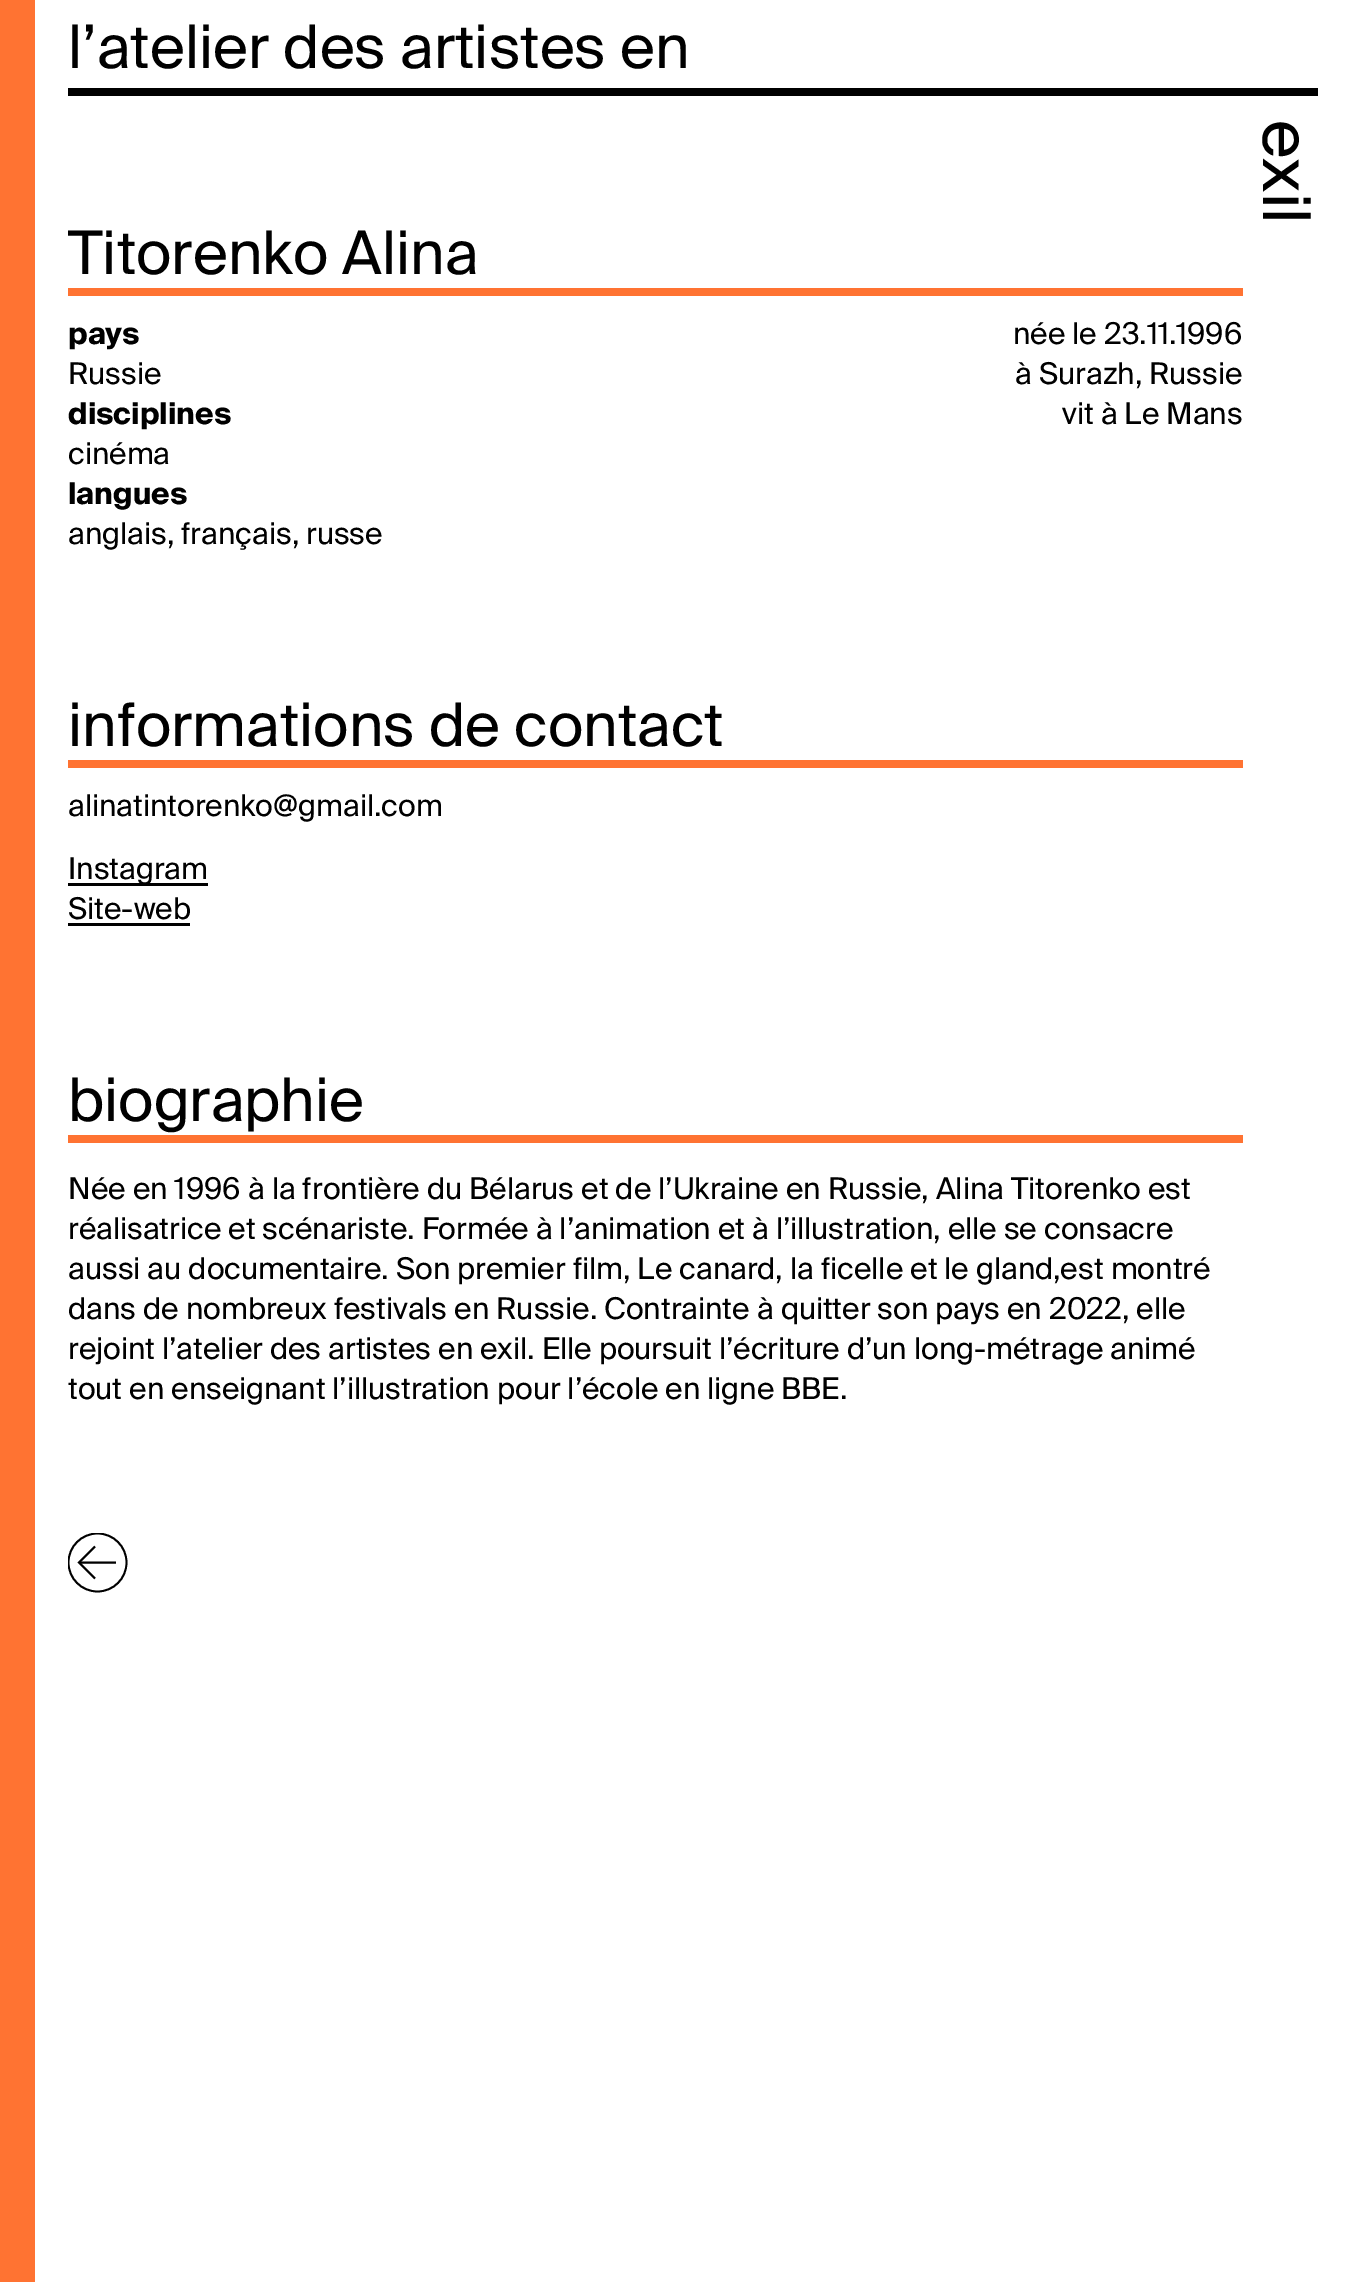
%!PS
<< /PageSize [1346 2282] >> setpagedevice
/mt/moveto load def
/li/lineto load def
/st/stroke load def
/gs/gsave load def
/gr/grestore load def
/lw/setlinewidth load def
/co { dup -16 bitshift 255 div exch dup -8 bitshift 255 and 255 div exch 255 and 255 div setrgbcolor } def
/fn { [ exch dup neg 0 0 3 -1 roll 0 0 ] selectfont } def
/tx { co fn moveto show } def
/bx { co rectfill } def
/ci { newpath 0 360 arc closepath } def
0 2282 translate 1 -1 scale
4 setmiterlimit
0 0 1346 2282 16#FFFFFF bx
0 0 35 2282 16#FF7332 bx
68 88 1250 8 16#000000 bx
68 288 1175 8 16#FF7332 bx
68 760 1175 8 16#FF7332 bx
68 883 140 3 16#000000 bx
68 923 122 3 16#000000 bx
68 1135 1175 8 16#FF7332 bx
gs
68 1533 60 60 rectclip
16#000000 co
1.8 lw
97.5 1562.5 29 ci st
gr
16#000000 co
1.9 lw
95 1578.5 mt 79 1562.5 li 95 1546.5 li st
1 setlinejoin
79 1562.5 mt 116 1562.5 li st
(l’atelier des artistes en) 68 68 /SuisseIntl-Regular 60 16#000000 tx
/SuisseIntl-Regular 66 fn
gs 1263 120 translate 90 rotate 0 0 mt (exil) show gr
(Titorenko Alina) 68 274 /SuisseIntl-Regular 60 16#000000 tx
(pays) 68 344 /SuisseIntl-Bold 30 16#000000 tx
(Russie) 68 384 /SuisseIntl-Regular 30 16#000000 tx
(disciplines) 68 424 /SuisseIntl-Bold 30 16#000000 tx
(cinéma) 68 464 /SuisseIntl-Regular 30 16#000000 tx
(langues) 68 504 /SuisseIntl-Bold 30 16#000000 tx
(anglais, français, russe) 68 544 /SuisseIntl-Regular 30 16#000000 tx
(née le 23.11.1996) 1013 344 /SuisseIntl-Regular 30 16#000000 tx
(à Surazh, Russie) 1015 384 /SuisseIntl-Regular 30 16#000000 tx
(vit à Le Mans) 1062 424 /SuisseIntl-Regular 30 16#000000 tx
(informations de contact) 68 746 /SuisseIntl-Regular 60 16#000000 tx
(alinatintorenko@gmail.com) 68 816 /SuisseIntl-Regular 30 16#000000 tx
(Instagram) 68 879 /SuisseIntl-Regular 30 16#000000 tx
(Site-web) 68 919 /SuisseIntl-Regular 30 16#000000 tx
(biographie) 68 1121 /SuisseIntl-Regular 60 16#000000 tx
(Née en 1996 à la frontière du Bélarus et de l’Ukraine en Russie, Alina Titorenko est) 68 1199 /SuisseIntl-Regular 30 16#000000 tx
(réalisatrice et scénariste. Formée à l’animation et à l’illustration, elle se consacre) 68 1239 /SuisseIntl-Regular 30 16#000000 tx
(aussi au documentaire. Son premier film, Le canard, la ficelle et le gland,est montré) 68 1279 /SuisseIntl-Regular 30 16#000000 tx
(dans de nombreux festivals en Russie. Contrainte à quitter son pays en 2022, elle) 68 1319 /SuisseIntl-Regular 30 16#000000 tx
(rejoint l’atelier des artistes en exil. Elle poursuit l’écriture d’un long-métrage animé) 68 1359 /SuisseIntl-Regular 30 16#000000 tx
(tout en enseignant l’illustration pour l’école en ligne BBE.) 68 1399 /SuisseIntl-Regular 30 16#000000 tx
showpage
